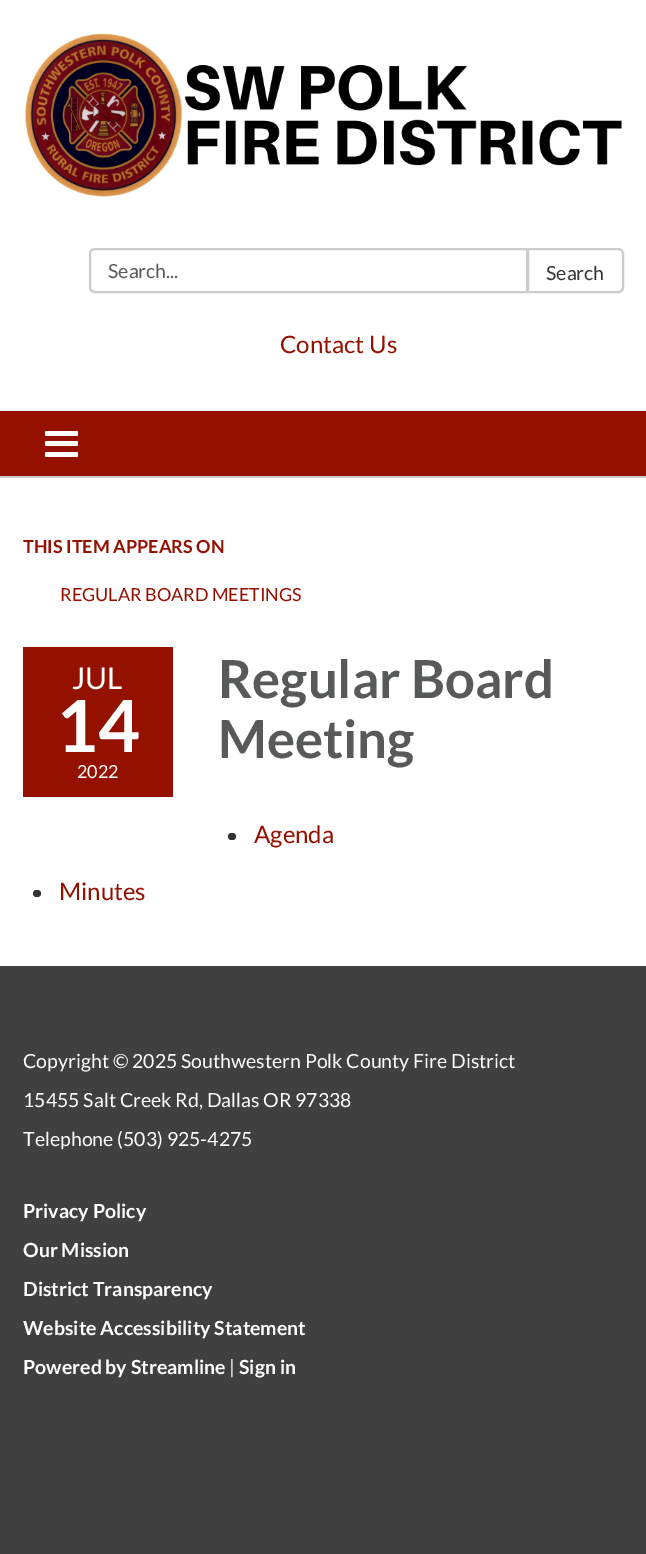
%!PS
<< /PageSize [646 1554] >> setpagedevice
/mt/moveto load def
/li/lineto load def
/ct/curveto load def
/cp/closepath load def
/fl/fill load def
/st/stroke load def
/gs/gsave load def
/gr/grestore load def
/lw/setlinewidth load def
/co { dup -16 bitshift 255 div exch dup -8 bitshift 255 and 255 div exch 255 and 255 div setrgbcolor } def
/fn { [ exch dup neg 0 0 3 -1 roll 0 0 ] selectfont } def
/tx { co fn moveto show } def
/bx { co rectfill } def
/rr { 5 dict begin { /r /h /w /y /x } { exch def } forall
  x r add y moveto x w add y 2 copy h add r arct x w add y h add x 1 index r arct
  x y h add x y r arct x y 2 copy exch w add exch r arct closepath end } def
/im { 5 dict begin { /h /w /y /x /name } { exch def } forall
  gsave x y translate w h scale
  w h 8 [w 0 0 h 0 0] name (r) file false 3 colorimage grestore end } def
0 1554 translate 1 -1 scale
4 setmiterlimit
0 0 646 1554 16#404041 bx
0 0 646 411 16#FFFFFF bx
(media/1.raw) 25 33 597 164 im
16#CCCCCC co
2 lw
95 249 mt 527 249 li 527 292 li 95 292 li 92 292 90 290 90 287 ct 90 254 li 90 251 92 249 95 249 ct cp st
16#FFFFFF co
528 249 mt 618 249 li 621 249 623 251 623 254 ct 623 287 li 623 290 621 292 618 292 ct 528 292 li cp gs fl gr
16#CCCCCC co
st
0 411 646 65 16#941100 bx
16#FFFFFF co
45 431 33 5 1.5 rr fl
45 441 33 5 1.5 rr fl
45 452 33 5 1.5 rr fl
0 478 646 488 16#FFFFFF bx
0 476 646 2 16#CCCCCC bx
23 647 150 150 16#941100 bx
16#333333 co
228 833 8 7 3.5 rr fl
33 890 8 7 3.5 rr fl
(Search...) 108 278 /Lato-Regular 19.5 16#58595B tx
(Search) 546 280 /Lato-Regular 19.5 16#333333 tx
(Contact Us) 280 353 /Lato-Regular 24 16#941100 tx
(THIS ITEM APPEARS ON) 23 553 /Lato-Bold 18 16#941100 tx
(REGULAR BOARD MEETINGS) 60 601 /Lato-Regular 18 16#941100 tx
(JUL) 72 689 /Lato-Regular 30 16#FFFFFF tx
(14) 56 752 /Lato-Bold 72 16#FFFFFF tx
(2022) 77 778 /Lato-Regular 18 16#FFFFFF tx
(Regular Board) 218 698 /Lato-Bold 52.5 16#58595B tx
(Meeting) 218 758 /Lato-Bold 52.5 16#58595B tx
(Agenda) 254 843 /Lato-Regular 24 16#941100 tx
(Minutes) 59 900 /Lato-Regular 24 16#941100 tx
(Copyright © 2025 Southwestern Polk County Fire District) 23 1068 /Lato-Regular 19.5 16#FFFFFF tx
(15455 Salt Creek Rd, Dallas OR 97338) 23 1107 /Lato-Regular 19.5 16#FFFFFF tx
(Telephone \(503\) 925-4275) 23 1146 /Lato-Regular 19.5 16#FFFFFF tx
(Privacy Policy) 23 1218 /Lato-Bold 19.5 16#FFFFFF tx
(Our Mission) 23 1257 /Lato-Bold 19.5 16#FFFFFF tx
(District Transparency) 23 1296 /Lato-Bold 19.5 16#FFFFFF tx
(Website Accessibility Statement) 23 1335 /Lato-Bold 19.5 16#FFFFFF tx
(Powered by Streamline) 23 1374 /Lato-Bold 19.5 16#FFFFFF tx
(|) 229 1374 /Lato-Regular 19.5 16#FFFFFF tx
(Sign in) 239 1374 /Lato-Bold 19.5 16#FFFFFF tx
showpage
